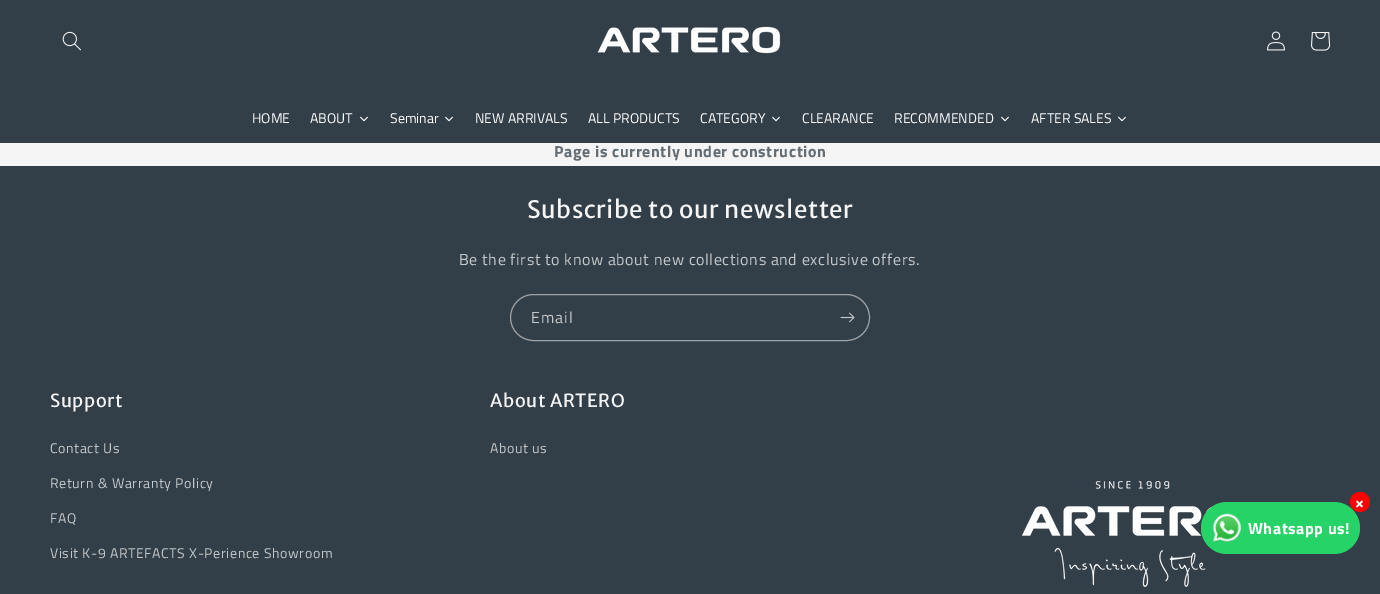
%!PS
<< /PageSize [1380 594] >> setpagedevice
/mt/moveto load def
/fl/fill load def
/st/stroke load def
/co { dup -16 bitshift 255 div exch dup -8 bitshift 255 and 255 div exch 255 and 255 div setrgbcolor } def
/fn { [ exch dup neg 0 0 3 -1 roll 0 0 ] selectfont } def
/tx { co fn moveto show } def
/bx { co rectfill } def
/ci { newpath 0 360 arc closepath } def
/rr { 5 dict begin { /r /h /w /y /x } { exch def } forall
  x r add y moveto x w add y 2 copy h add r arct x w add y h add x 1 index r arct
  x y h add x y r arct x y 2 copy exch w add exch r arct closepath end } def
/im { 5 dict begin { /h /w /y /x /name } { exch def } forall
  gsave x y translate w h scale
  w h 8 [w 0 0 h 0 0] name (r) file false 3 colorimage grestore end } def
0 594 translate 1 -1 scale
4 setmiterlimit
0 0 1380 594 16#F5F5F5 bx
0 0 1380 143 16#333F48 bx
(media/1.raw) 62 31 19 20 im
(media/2.raw) 597 26 184 28 im
(media/3.raw) 1267 31 18 20 im
(media/4.raw) 1311 32 20 19 im
(media/5.raw) 360 116 8 6 im
(media/5.raw) 445 116 8 6 im
(media/5.raw) 772 116 8 6 im
(media/5.raw) 1001 116 8 6 im
(media/5.raw) 1118 116 8 6 im
0 166 1380 428 16#333F48 bx
16#9EA3A7 co
510.5 294.5 359 46 23 rr st
(media/6.raw) 840 312 15 11 im
(media/7.raw) 1022 480 192 107 im
16#25D366 co
1201 502 159 52 26 rr fl
16#FF0000 co
1360 502 10 ci fl
(media/8.raw) 1212 513 30 29 im
(HOME) 252 123 /TitilliumWeb-Regular 14 16#FFFFFF tx
(ABOUT) 310 123 /TitilliumWeb-Regular 14 16#FFFFFF tx
(Seminar) 390 123 /TitilliumWeb-Regular 14 16#FFFFFF tx
(NEW ARRIVALS) 475 123 /TitilliumWeb-Regular 14 16#FFFFFF tx
(ALL PRODUCTS) 588 123 /TitilliumWeb-Regular 14 16#FFFFFF tx
(CATEGORY) 700 123 /TitilliumWeb-Regular 14 16#FFFFFF tx
(CLEARANCE) 802 123 /TitilliumWeb-Regular 14 16#FFFFFF tx
(RECOMMENDED) 894 123 /TitilliumWeb-Regular 14 16#FFFFFF tx
(AFTER SALES) 1031 123 /TitilliumWeb-Regular 14 16#FFFFFF tx
/TitilliumWeb-Bold 16 fn
16#646D73 co
554 157 mt .6 0 (Page is currently under construction) ashow
/MerriweatherSans-Regular 24 fn
16#F5F5F5 co
527 218 mt .6 0 (Subscribe to our newsletter) ashow
/TitilliumWeb-Regular 16 fn
16#C5C8CA co
459 265 mt .6 0 (Be the first to know about new collections and exclusive offers.) ashow
531 323 mt 1 0 (Email) ashow
/MerriweatherSans-Regular 18 fn
16#F5F5F5 co
50 407 mt .6 0 (Support) ashow
/TitilliumWeb-Regular 14 fn
16#C5C8CA co
50 453 mt .6 0 (Contact Us) ashow
50 488 mt .6 0 (Return & Warranty Policy) ashow
50 523 mt .6 0 (FAQ) ashow
50 558 mt .6 0 (Visit K-9 ARTEFACTS X-Perience Showroom) ashow
/MerriweatherSans-Regular 18 fn
16#F5F5F5 co
490 407 mt .6 0 (About ARTERO) ashow
/TitilliumWeb-Regular 14 fn
16#C5C8CA co
490 453 mt .6 0 (About us) ashow
/TitilliumWeb-Bold 16 fn
16#FFFFFF co
1355 508 mt .6 0 (×) ashow
1248 534 mt .6 0 (Whatsapp us!) ashow
showpage
